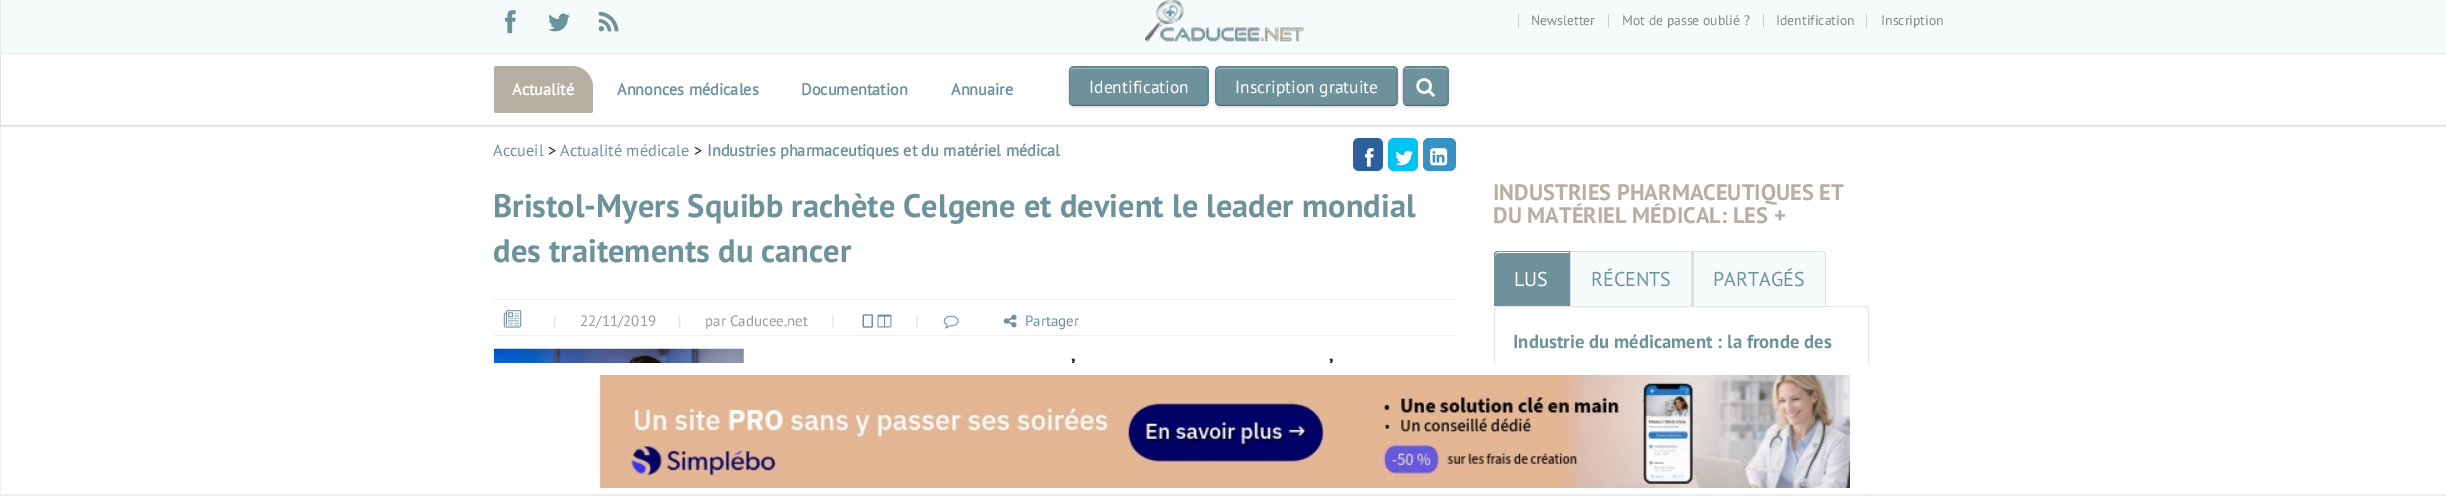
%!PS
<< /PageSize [2446 496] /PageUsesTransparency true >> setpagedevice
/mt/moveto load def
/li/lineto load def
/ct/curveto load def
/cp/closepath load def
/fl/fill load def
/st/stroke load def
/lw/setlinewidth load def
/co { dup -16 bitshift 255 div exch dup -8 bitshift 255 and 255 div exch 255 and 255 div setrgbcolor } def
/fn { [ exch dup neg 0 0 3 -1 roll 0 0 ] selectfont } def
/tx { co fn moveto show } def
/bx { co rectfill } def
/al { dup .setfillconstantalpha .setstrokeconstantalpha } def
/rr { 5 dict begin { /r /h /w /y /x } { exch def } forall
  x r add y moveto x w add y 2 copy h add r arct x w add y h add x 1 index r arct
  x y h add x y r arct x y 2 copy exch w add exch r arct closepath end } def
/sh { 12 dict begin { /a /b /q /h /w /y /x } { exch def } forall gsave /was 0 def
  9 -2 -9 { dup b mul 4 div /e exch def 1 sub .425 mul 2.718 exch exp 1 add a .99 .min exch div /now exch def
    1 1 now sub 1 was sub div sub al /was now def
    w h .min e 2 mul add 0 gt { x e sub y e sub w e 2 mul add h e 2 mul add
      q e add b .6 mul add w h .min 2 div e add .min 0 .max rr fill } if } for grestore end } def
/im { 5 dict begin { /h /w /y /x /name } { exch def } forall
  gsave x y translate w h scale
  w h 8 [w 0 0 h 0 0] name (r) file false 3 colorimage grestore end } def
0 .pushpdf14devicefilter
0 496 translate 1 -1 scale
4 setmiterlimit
0 0 2446 496 16#FFFFFF bx
0 0 1 496 16#EEEEEE bx
1 0 2445 53 16#F5FAFA bx
1 53 2445 1 16#EEEEEE bx
(media/1.raw) 505 10 11 24 im
(media/2.raw) 548 13 22 19 im
(media/3.raw) 598 11 21 21 im
(media/4.raw) 1145 0 159 42 im
1518 14 1 14 16#CCCCCC bx
1608 14 1 14 16#CCCCCC bx
1763 14 1 14 16#CCCCCC bx
1866 14 1 14 16#CCCCCC bx
16#000000 co
1 55 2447 71 0 1 .2 sh
1 54 2445 71 16#FFFFFF bx
16#B7AFA3 co
496.5 66 mt 572 66 li 583.5 66 593 75.5 593 87 ct 593 110.5 li 593 112 592 113 590.5 113 ct 496.5 113 li 495 113 494 112 494 110.5 ct 494 68.5 li 494 67 495 66 496.5 66 ct cp fl
16#000000 co
1069 68 140 40 5 2 .1 sh
16#6D929B co
1069 66 140 40 5 rr fl
16#99B3B9 co
1074 69 mt 1204 69 li 1206 69 1208 70 1208 72 ct 1208 70 1206 68 1204 68 ct 1074 68 li 1072 68 1070 70 1070 72 ct 1070 70 1072 69 1074 69 ct cp fl
0.25 al
16#000000 co
1.2 lw
1207 104.5 mt 1204 105.5 li 1073.5 105.5 li 1070.5 104.5 li st
0.1 al
1070.5 104.5 mt 1068 101.5 1069.5 94 1069.5 91 ct 1069.5 62 1064.5 67 1095.5 67 ct 1182 67 li 1213 67 1208 62 1208 91 ct 1208 94 1209.5 101.5 1207 104.5 ct st
1 al
1215 68 183 40 5 2 .1 sh
16#6D929B co
1215 66 183 40 5 rr fl
16#99B3B9 co
1220 69 mt 1394 69 li 1396 70 li 1395 69 1394 68 1392 68 ct 1220 68 li 1218 68 1216 70 1216 72 ct 1216 70 1218 69 1220 69 ct cp fl
0.25 al
16#000000 co
1395.5 104.5 mt 1395 105 1393.5 105.5 1392.5 105.5 ct 1220 105.5 li 1219 105.5 1217.5 105 1217 104.5 ct st
0.1 al
1217 104.5 mt 1216 103.5 1215.5 102.5 1215.5 101 ct 1215.5 71 li 1215.5 70 1216 69 1217 68 ct 1217.5 67.5 1219 67 1220 67 ct 1392.5 67 li 1393.5 67 1395 67.5 1395.5 68 ct 1396.5 69 1397 70 1397 71 ct 1397 101 li 1397 102.5 1396.5 103.5 1395.5 104.5 ct st
1 al
1403 68 46 40 5 2 .1 sh
16#6D929B co
1403 66 46 40 5 rr fl
16#99B3B9 co
1408 69 mt 1444 69 li 1446 69 1448 70 1448 72 ct 1448 70 1446 68 1444 68 ct 1408 68 li 1406 68 1405 69 1404 70 ct 1405 69 1406 69 1408 69 ct cp fl
0.25 al
16#000000 co
1447 104.5 mt 1446 105 1445 105.5 1444 105.5 ct 1407.5 105.5 li 1406.5 105.5 1405 105 1404.5 104.5 ct st
0.1 al
1404.5 104.5 mt 1402.5 102.5 1403 98.5 1403 96 ct 1403 86 li 1403 62.5 1400.5 67 1425.5 67 ct 1451 67 1448 62.5 1448 86 ct 1448 96 li 1448 98.5 1449 102.5 1447 104.5 ct st
1 al
(media/5.raw) 1416 78 19 19 im
16#2D609B co
1353 138 30 33 6 rr fl
(media/6.raw) 1365 148 9 19 im
16#00C3F3 co
1388 138 30 33 6 rr fl
(media/7.raw) 1395 150 18 16 im
16#3692C3 co
1423 138 33 33 6 rr fl
(media/8.raw) 1430 148 18 18 im
494 299 962 1 16#EEEEEE bx
494 335 962 1 16#EEEEEE bx
(media/9.raw) 503 310 19 18 im
(media/10.raw) 862 314 11 14 im
(media/11.raw) 877 314 15 14 im
(media/12.raw) 943 315 16 14 im
(media/13.raw) 1003 314 14 14 im
(media/14.raw) 493 348 251 15 im
16#6D929B co
1498 251 mt 1570 251 li 1570 306 li 1494 306 li 1494 255 li 1494 253 1495 251 1498 251 ct cp 1498 252 mt 1569 252 li 1569 306 li 1495 306 li 1495 255 li 1495 254 1496 252 1498 252 ct cp eofill
1499 253 mt 1569 253 li 1569 306 li 1495 306 li 1495 257 li 1495 255 1497 253 1499 253 ct cp fl
1570 251 123 1 16#DDDDDD bx
1691 251 1 55 16#DDDDDD bx
1570 251 1 55 16#DDDDDD bx
1571 253 120 53 16#F5FAFA bx
16#DDDDDD co
1692 251 mt 1822 251 li 1825 251 1826 253 1826 255 ct 1826 306 li 1692 306 li cp 1694 252 mt 1822 252 li 1824 252 1825 254 1825 255 ct 1825 306 li 1694 306 li cp eofill
16#F5FAFA co
1694 253 mt 1821 253 li 1823 253 1825 255 1825 257 ct 1825 306 li 1694 306 li cp fl
16#E6E6E6 co
1 lw
1494.5 306.5 374 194 3.5 rr st
1 494 2445 2 16#EEEEEE bx
(Newsletter) 1531 25 /PTSans-Regular 13.75 16#888888 tx
(Mot de passe oublié ?) 1622 25 /PTSans-Regular 13.75 16#888888 tx
(Identification) 1776 25 /PTSans-Regular 13.75 16#888888 tx
(Inscription) 1881 25 /PTSans-Regular 13.75 16#888888 tx
(Actualité) 512 95 /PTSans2-Bold 16.25 16#FFFFFF tx
(Annonces médicales) 617 95 /PTSans2-Bold 16.25 16#6D929B tx
(Documentation) 801 95 /PTSans2-Bold 16.25 16#6D929B tx
(Annuaire) 951 95 /PTSans2-Bold 16.25 16#6D929B tx
(Identification) 1089 93 /PTSans-Regular 17.5 16#FFFFFF tx
(Inscription gratuite) 1235 93 /PTSans-Regular 17.5 16#FFFFFF tx
(Accueil) 493 156 /PTSans-Regular 16.25 16#6D929B tx
(>) 548 156 /PTSans-Regular 16.25 16#16212C tx
(Actualité médicale) 560 156 /PTSans-Regular 16.25 16#6D929B tx
(>) 694 156 /PTSans-Regular 16.25 16#16212C tx
(Industries pharmaceutiques et du matériel médical) 707 156 /PTSans2-Bold 16.25 16#6D929B tx
(Bristol-Myers Squibb rachète Celgene et devient le leader mondial) 493 217 /PTSans-Bold 32.5 16#6D929B tx
(des traitements du cancer) 493 262 /PTSans-Bold 32.5 16#6D929B tx
(|) 553 326 /PTSans-Regular 15 16#DDDDDD tx
(22/11/2019) 580 326 /PTSans-Regular 15 16#999999 tx
(|) 678 326 /PTSans-Regular 15 16#DDDDDD tx
(par Caducee.net) 705 326 /PTSans-Regular 15 16#999999 tx
(|) 831 326 /PTSans-Regular 15 16#DDDDDD tx
(|) 915 326 /PTSans-Regular 15 16#DDDDDD tx
(Partager) 1025 326 /PTSans-Regular 15 16#6D929B tx
(’) 1071 374 /PTSans2-Bold 21 16#16212C tx
(’) 1329 374 /PTSans2-Bold 21 16#16212C tx
(INDUSTRIES PHARMACEUTIQUES ET) 1493 200 /PTSans-Bold 22.5 16#B7AFA3 tx
(DU MATÉRIEL MÉDICAL: LES +) 1493 223 /PTSans-Bold 22.5 16#B7AFA3 tx
(LUS) 1514 286 /PTSans-Regular 20 16#FFFFFF tx
(RÉCENTS) 1591 286 /PTSans-Regular 20 16#6D929B tx
(PARTAGÉS) 1713 286 /PTSans-Regular 20 16#6D929B tx
(Industrie du médicament : la fronde des) 1513 348 /PTSans-Bold 18.75 16#6D929B tx
1072 363 797 131 16#FFFFFF bx
(media/15.raw) 599 375 1251 113 im
.poppdf14devicefilter showpage
